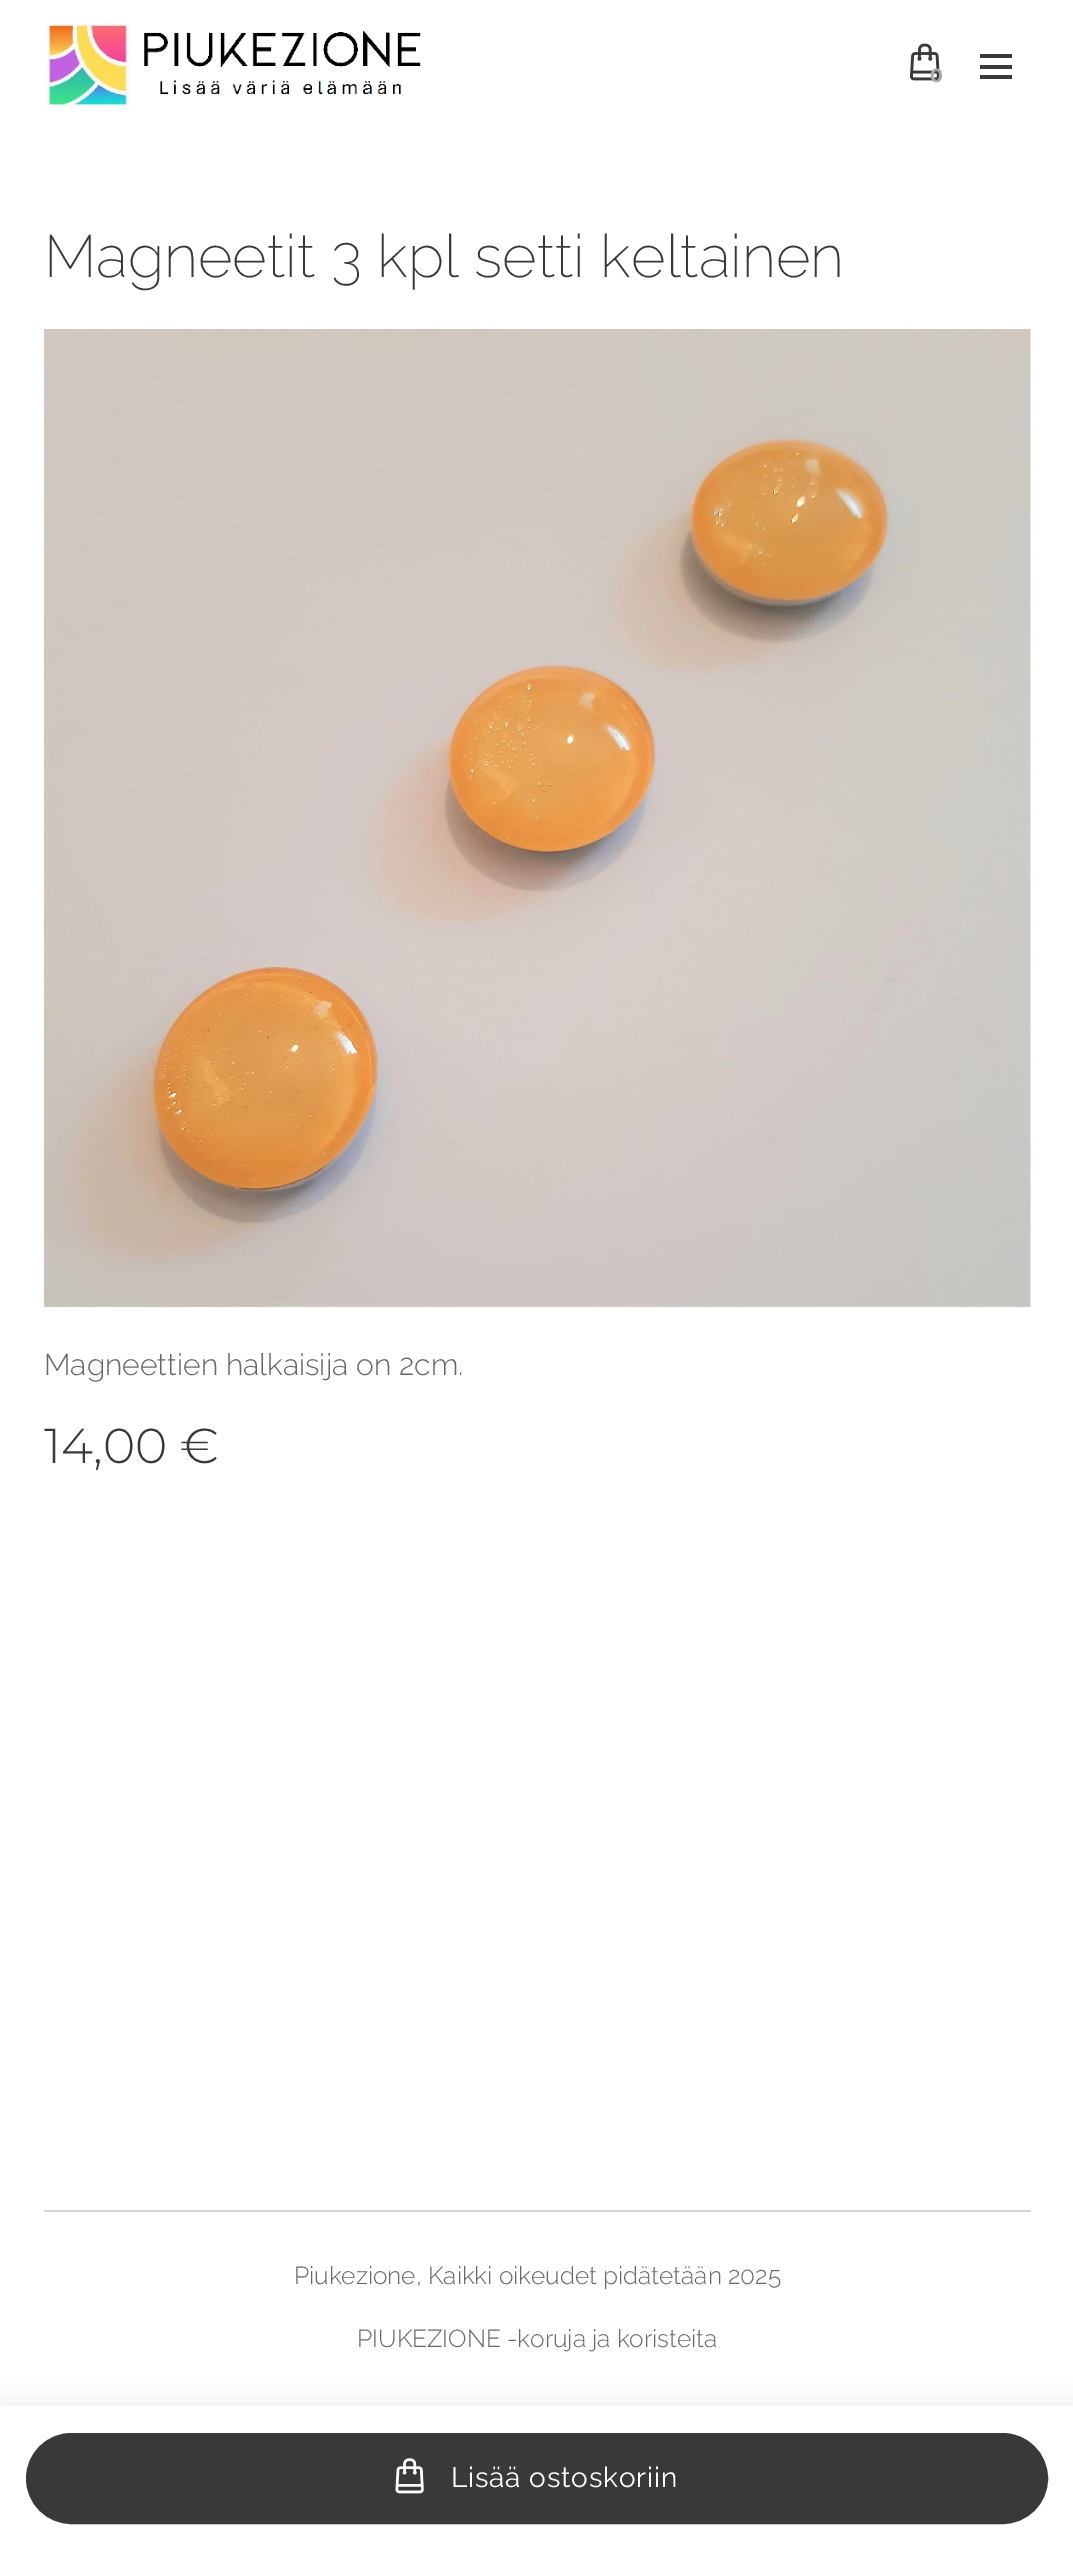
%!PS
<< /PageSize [1073 2549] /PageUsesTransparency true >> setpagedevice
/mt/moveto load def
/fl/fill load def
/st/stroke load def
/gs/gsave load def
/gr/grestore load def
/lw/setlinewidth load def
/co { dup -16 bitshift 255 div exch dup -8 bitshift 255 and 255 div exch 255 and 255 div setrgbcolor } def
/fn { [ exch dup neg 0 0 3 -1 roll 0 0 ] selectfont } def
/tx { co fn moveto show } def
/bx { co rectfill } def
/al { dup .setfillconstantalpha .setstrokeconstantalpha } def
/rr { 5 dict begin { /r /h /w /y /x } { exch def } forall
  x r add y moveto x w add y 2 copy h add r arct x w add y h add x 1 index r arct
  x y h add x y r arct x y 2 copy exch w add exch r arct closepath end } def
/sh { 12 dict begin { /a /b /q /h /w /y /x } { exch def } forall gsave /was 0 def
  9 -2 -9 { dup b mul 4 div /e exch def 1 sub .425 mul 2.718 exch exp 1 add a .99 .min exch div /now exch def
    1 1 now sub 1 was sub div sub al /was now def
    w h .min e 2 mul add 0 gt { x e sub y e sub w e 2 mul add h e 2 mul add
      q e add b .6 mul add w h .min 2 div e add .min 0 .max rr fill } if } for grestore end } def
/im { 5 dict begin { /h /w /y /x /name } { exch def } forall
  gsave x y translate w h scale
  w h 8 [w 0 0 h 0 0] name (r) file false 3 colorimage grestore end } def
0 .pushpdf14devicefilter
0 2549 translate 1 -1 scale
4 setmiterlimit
0 0 1073 2549 16#FFFFFF bx
(media/1.raw) 47 23 374 84 im
(media/2.raw) 910 43 30 38 im
980 65 32 4 16#393939 bx
980 54 32 4 16#393939 bx
980 75 32 4 16#393939 bx
(media/3.raw) 43 329 988 979 im
16#000000 co
0 2399 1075 144 0 13 .06 sh
0 2406 1073 143 16#FFFFFF bx
16#393939 co
27 2434 1020 89 44.5 rr gs fl gr
2 lw
st
(media/4.raw) 395 2458 29 36 im
44 2210 987 2 16#D4D4D4 bx
(0) 930 82 /Montserrat-Bold 19 16#AAAAAA tx
(Magneetit 3 kpl setti keltainen) 44 277 /Raleway-ExtraLight 59.5 16#393939 tx
(Magneettien halkaisija on 2cm.) 44 1375 /Raleway-Light 30.1 16#666666 tx
(14,00 €) 44 1463 /Montserrat-Light 49 16#393939 tx
/Raleway-Regular 28 fn
16#FFFFFF co
451 2487 mt .8 0 (Lisää ostoskoriin) ashow
(Piukezione, Kaikki oikeudet pidätetään 2025) 294 2284 /Raleway-Light 24.5 16#666666 tx
(PIUKEZIONE -koruja ja koristeita) 357 2347 /Raleway-Light 24.5 16#666666 tx
.poppdf14devicefilter showpage
